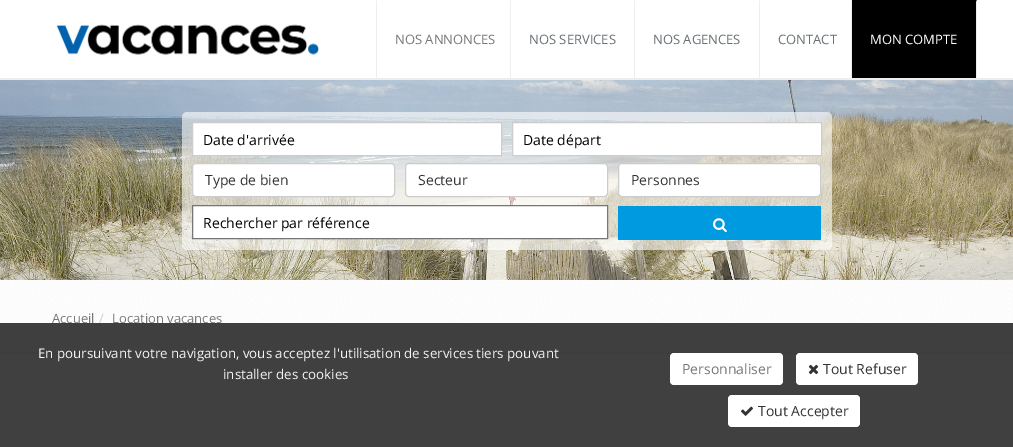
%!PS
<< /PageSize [1013 447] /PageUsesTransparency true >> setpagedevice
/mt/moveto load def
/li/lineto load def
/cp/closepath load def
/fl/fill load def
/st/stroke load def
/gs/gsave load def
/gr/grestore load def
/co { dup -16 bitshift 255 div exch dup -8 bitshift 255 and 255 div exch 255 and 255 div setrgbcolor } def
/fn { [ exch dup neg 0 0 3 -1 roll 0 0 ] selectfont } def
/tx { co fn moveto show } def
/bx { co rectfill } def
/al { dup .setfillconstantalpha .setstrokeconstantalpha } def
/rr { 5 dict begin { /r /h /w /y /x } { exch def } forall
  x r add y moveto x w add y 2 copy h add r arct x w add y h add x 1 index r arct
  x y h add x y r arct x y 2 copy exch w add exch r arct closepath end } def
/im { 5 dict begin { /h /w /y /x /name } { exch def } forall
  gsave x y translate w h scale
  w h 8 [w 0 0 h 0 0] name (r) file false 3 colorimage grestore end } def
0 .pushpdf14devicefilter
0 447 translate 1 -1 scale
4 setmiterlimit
0 0 1013 447 16#FFFFFF bx
0 78 1013 2 16#EEEEEE bx
(media/1.raw) 56 24 263 31 im
511 0 mt 511 78 li 510 78 li 510 2 li cp fl
376 78 mt 376 0 li 377 2 li 377 78 li cp fl
635 0 mt 635 78 li 634 78 li 634 2 li cp fl
760 0 mt 760 78 li 759 78 li 759 2 li cp fl
852 0 mt 852 78 li 851 78 li 851 2 li cp fl
852 0 125 78 16#000000 bx
16#EEEEEE co
977 0 mt 977 78 li 976 78 li 976 2 li cp fl
(media/2.raw) 0 80 1013 200 im
0.6 al
16#FFFFFF co
182 112 650 138 5 rr fl
1 al
192.5 122.5 mt 501.5 122.5 li 501.5 155.5 li 192.5 155.5 li cp gs fl gr
16#CCCCCC co
st
16#FFFFFF co
512.5 122.5 mt 821.5 122.5 li 821.5 155.5 li 512.5 155.5 li cp gs fl gr
16#CCCCCC co
st
16#FFFFFF co
192.5 163.5 202 33 3.5 rr gs fl gr
16#CCCCCC co
st
16#FFFFFF co
405.5 163.5 202 33 3.5 rr gs fl gr
16#CCCCCC co
st
16#FFFFFF co
618.5 163.5 202 33 3.5 rr gs fl gr
16#CCCCCC co
st
16#FFFFFF co
192.5 205.5 mt 607.5 205.5 li 607.5 238.5 li 192.5 238.5 li cp gs fl gr
16#767676 co
st
618 206 203 34 16#009AE1 bx
(media/3.raw) 713 218 14 15 im
(media/4.raw) 0 280 1013 73 im
0 353 1013 1 16#EEEEEE bx
(NOS ANNONCES) 395 44 /OpenSans-Regular 13 16#777777 tx
(NOS SERVICES) 529 44 /OpenSans-Regular 13 16#687074 tx
(NOS AGENCES) 653 44 /OpenSans-Regular 13 16#687074 tx
(CONTACT) 778 44 /OpenSans-Regular 13 16#687074 tx
(MON COMPTE) 870 44 /OpenSans-Regular 13 16#FFFFFF tx
(Date d'arrivée) 203 145 /OpenSans-Regular 14 16#000000 tx
(Date départ) 523 145 /OpenSans-Regular 14 16#000000 tx
(Type de bien) 205 185 /OpenSans-Regular 14 16#333333 tx
(Secteur) 418 185 /OpenSans-Regular 14 16#333333 tx
(Personnes) 631 185 /OpenSans-Regular 14 16#333333 tx
(Rechercher par référence) 203 228 /OpenSans-Regular 14 16#000000 tx
(Accueil) 52 323 /OpenSans-Regular 13 16#777777 tx
(/) 99 323 /OpenSans-Regular 13 16#CCCCCC tx
(Location vacances) 112 323 /OpenSans-Regular 13 16#777777 tx
0.75 al
0 323 1013 124 16#000000 bx
1 al
(En poursuivant votre navigation, vous acceptez l'utilisation de services tiers pouvant) 38 358 /OpenSans-Regular 13.35 16#F5F5F5 tx
(installer des cookies) 223 379 /OpenSans-Regular 13.35 16#F5F5F5 tx
16#FFFFFF co
670 353 113 32 4 rr fl
(Personnaliser) 682 374 /OpenSans-Regular 14 16#777777 tx
16#FFFFFF co
796 353 122 32 4 rr fl
(media/5.raw) 808 364 11 11 im
(Tout Refuser) 823 374 /OpenSans-Regular 14 16#333333 tx
16#FFFFFF co
728 395 132 32 4 rr fl
(media/6.raw) 741 406 12 10 im
(Tout Accepter) 758 416 /OpenSans-Regular 14 16#333333 tx
.poppdf14devicefilter showpage
